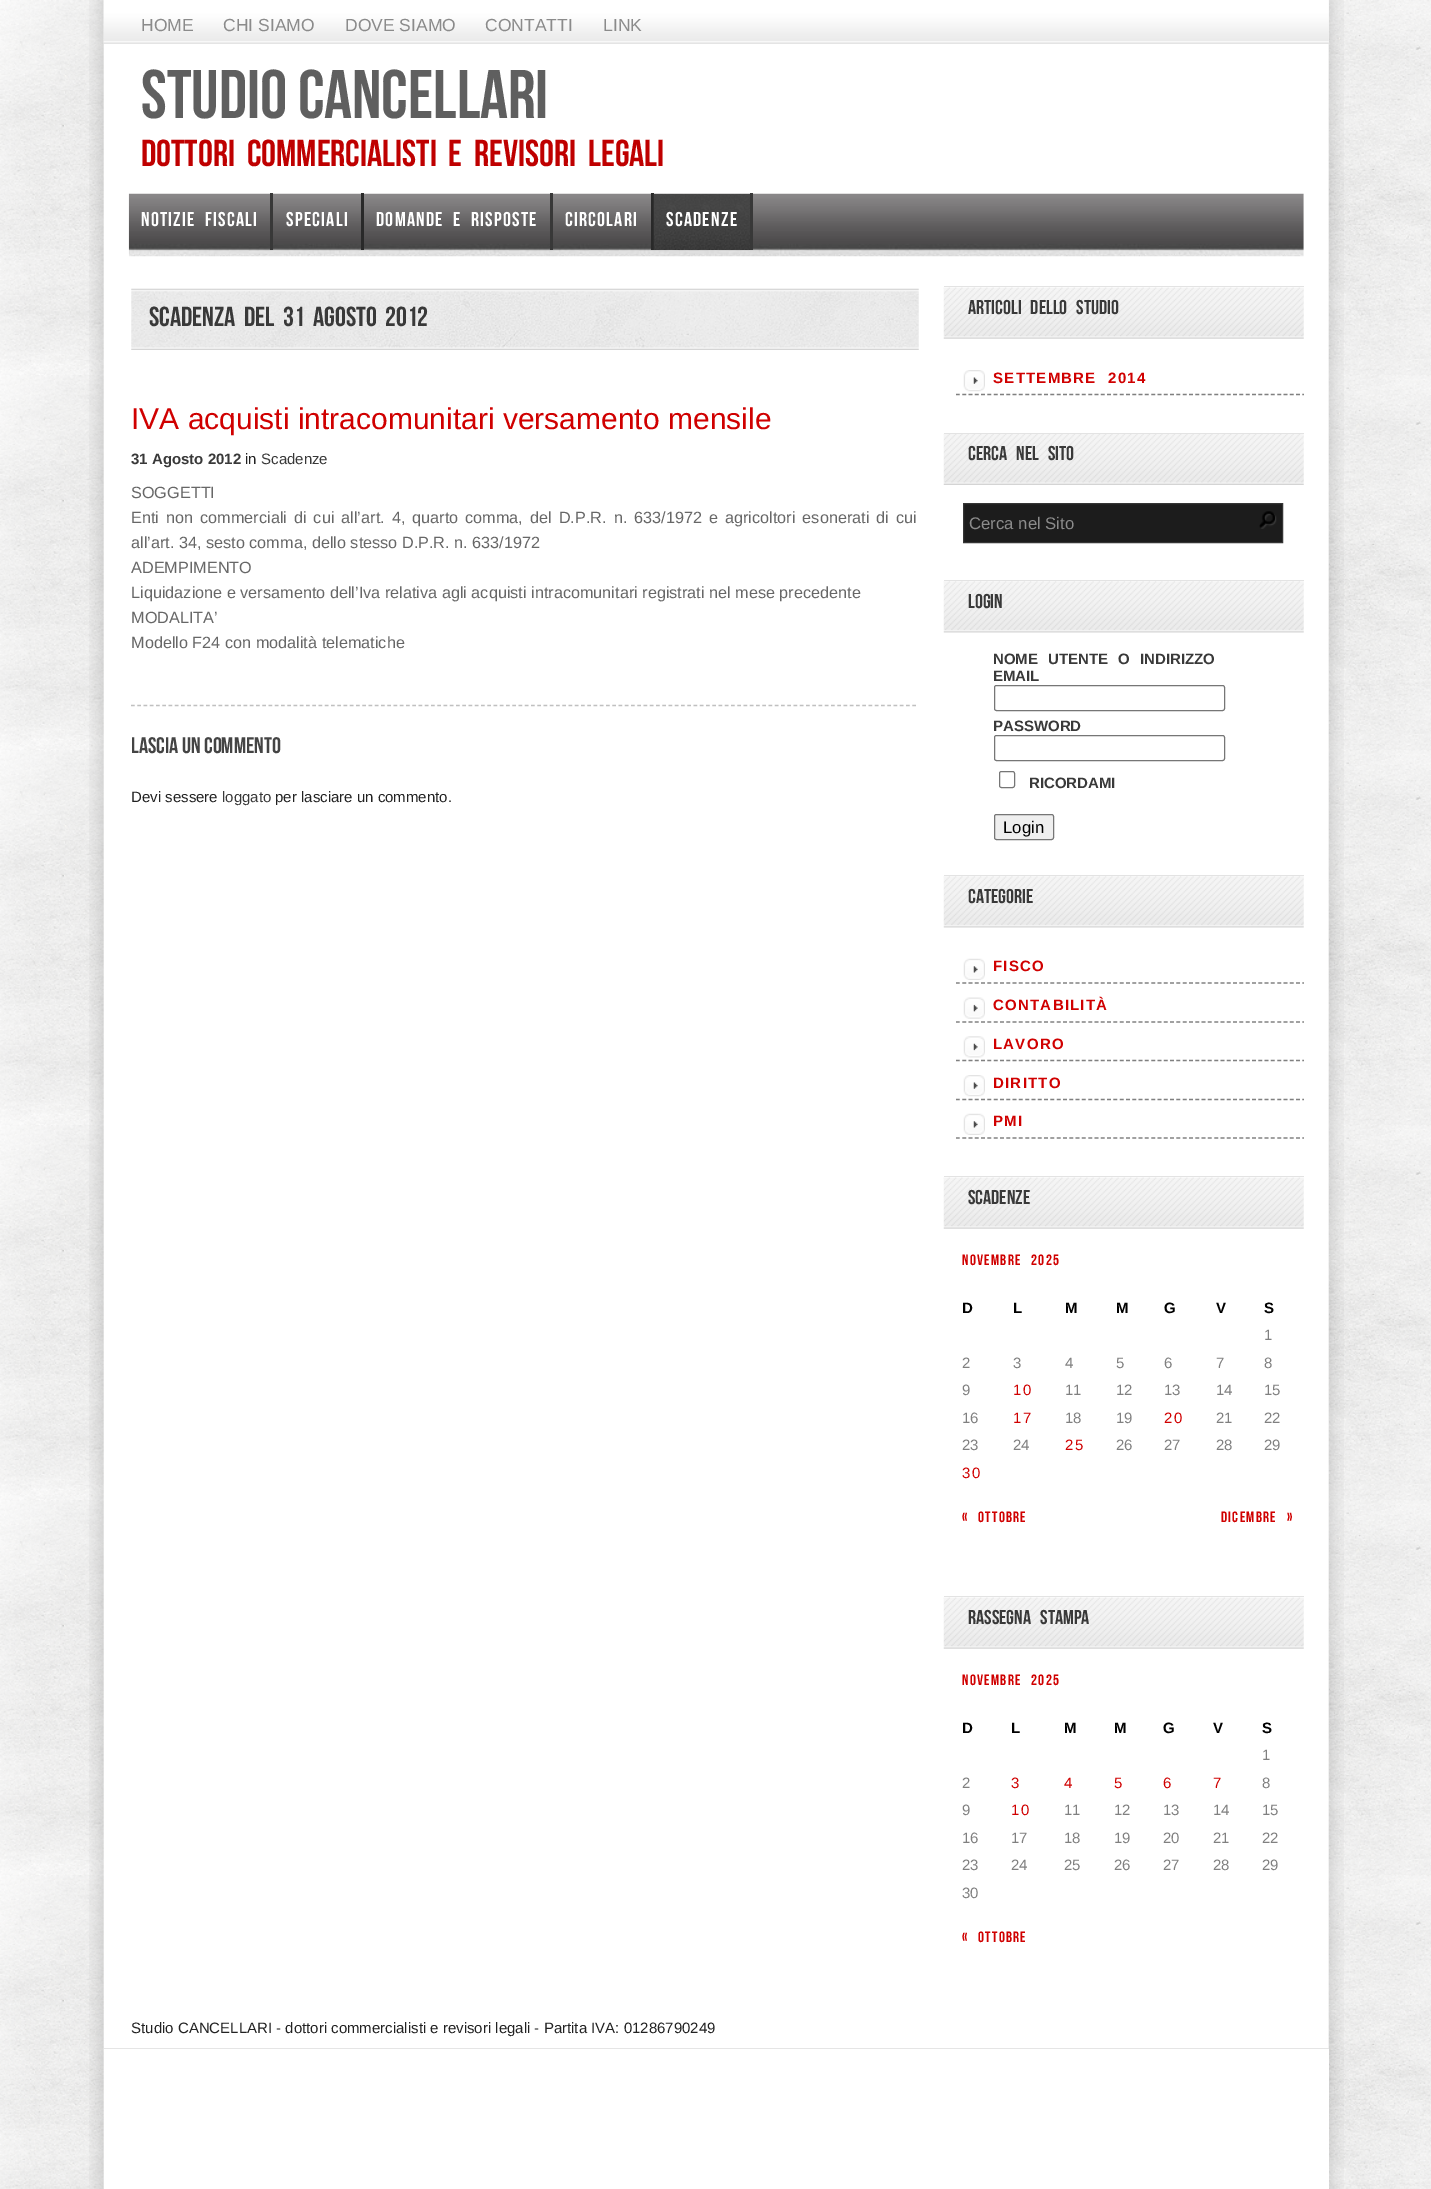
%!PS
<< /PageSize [1431 2189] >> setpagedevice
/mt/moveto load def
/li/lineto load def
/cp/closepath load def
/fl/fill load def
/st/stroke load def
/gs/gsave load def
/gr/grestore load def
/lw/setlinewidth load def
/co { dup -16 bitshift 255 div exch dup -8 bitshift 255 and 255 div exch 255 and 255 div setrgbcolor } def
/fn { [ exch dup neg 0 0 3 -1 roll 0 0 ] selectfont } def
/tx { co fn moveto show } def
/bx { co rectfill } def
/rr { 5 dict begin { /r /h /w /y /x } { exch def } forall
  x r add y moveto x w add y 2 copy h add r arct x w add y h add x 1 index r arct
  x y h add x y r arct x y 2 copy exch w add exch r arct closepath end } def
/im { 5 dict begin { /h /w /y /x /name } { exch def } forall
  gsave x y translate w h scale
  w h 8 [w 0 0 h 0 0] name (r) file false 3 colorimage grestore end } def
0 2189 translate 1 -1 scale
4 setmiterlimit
0 0 1431 2189 16#FFFFFF bx
(media/1.raw) 0 0 1431 2189 im
(media/2.raw) 89 0 1255 2189 im
(media/3.raw) 103 0 1226 44 im
(media/4.raw) 128 193 1176 64 im
270 193 3 57 16#383838 bx
361 193 3 57 16#292929 bx
550 193 3 57 16#383838 bx
651 193 3 57 16#292929 bx
750 193 3 57 16#383838 bx
(media/5.raw) 653 193 97 57 im
(media/6.raw) 131 288 788 62 im
16#C0C0C0 co
1.2 lw
[3.75 2.5] 0 setdash
131 705.5 mt 916 705.5 li st
(media/7.raw) 943 287 361 52 im
944 286 360 1 16#E3E3E3 bx
(media/8.raw) 963 370 22 22 im
gs
129 44 1175 2004 rectclip
16#808080 co
[3.75 2.55] 0 setdash
956 394.5 mt 1319 394.5 li st
gr
(media/9.raw) 943 433 361 52 im
944 433 360 1 16#E3E3E3 bx
16#1C1C1C co
963.5 503.5 mt 1282.5 503.5 li 1282.5 542.5 li 963.5 542.5 li cp gs fl gr
16#353535 co
1 lw
[] 0 setdash
st
(media/10.raw) 1259 511 18 18 im
(media/11.raw) 943 581 361 52 im
944 580 360 1 16#E3E3E3 bx
16#767676 co
994.5 685.5 230 25 2 rr st
994.5 735.5 230 25 2 rr st
999.5 771.5 15 16 2 rr st
16#EFEFEF co
994.5 814.5 59 25 2 rr gs fl gr
16#767676 co
st
(media/12.raw) 943 876 361 52 im
944 875 360 1 16#E3E3E3 bx
(media/13.raw) 963 958 22 22 im
gs
129 44 1175 2004 rectclip
16#808080 co
1.2 lw
[3.75 2.55] 0 setdash
956 983 mt 1319 983 li st
gr
(media/14.raw) 963 997 22 22 im
gs
129 44 1175 2004 rectclip
16#808080 co
1.2 lw
[3.75 2.55] 0 setdash
956 1022 mt 1319 1022 li st
gr
(media/15.raw) 963 1036 22 22 im
gs
129 44 1175 2004 rectclip
16#808080 co
1.2 lw
[3.75 2.55] 0 setdash
956 1060.5 mt 1319 1060.5 li st
gr
(media/8.raw) 963 1075 22 22 im
gs
129 44 1175 2004 rectclip
16#808080 co
1.2 lw
[3.75 2.55] 0 setdash
956 1099.5 mt 1319 1099.5 li st
gr
(media/13.raw) 963 1113 22 22 im
gs
129 44 1175 2004 rectclip
16#808080 co
1.2 lw
[3.75 2.55] 0 setdash
956 1138 mt 1319 1138 li st
gr
(media/16.raw) 943 1177 361 52 im
944 1176 360 1 16#E3E3E3 bx
(media/17.raw) 943 1597 361 52 im
944 1596 360 1 16#E3E3E3 bx
1328 2049 1 140 16#FFFFFF bx
104 2048 1225 1 16#E5E5E5 bx
(HOME) 141 31 /LiberationSans-Regular 17.5 16#8B8B8B tx
(CHI SIAMO) 223 31 /LiberationSans-Regular 17.5 16#8B8B8B tx
(DOVE SIAMO) 345 31 /LiberationSans-Regular 17.5 16#8B8B8B tx
(CONTATTI) 485 31 /LiberationSans-Regular 17.5 16#8B8B8B tx
(LINK) 603 31 /LiberationSans-Regular 17.5 16#8B8B8B tx
(STUDIO CANCELLARI) 141 118 /BebasNeue-Regular 68.75 16#5F5F5F tx
/BebasNeue-Regular 37.5 fn
16#BF0000 co
141 166 mt 6 0 32 (dottori commercialisti e revisori legali) widthshow
/BebasNeue-Regular 20 fn
16#FFFFFF co
141 226 mt 5 0 32 1.25 0 (NOTIZIE FISCALI) awidthshow
286 226 mt 1.25 0 (SPECIALI) ashow
376 226 mt 5 0 32 1.25 0 (DOMANDE E RISPOSTE) awidthshow
565 226 mt 1.25 0 (CIRCOLARI) ashow
666 226 mt 1.25 0 (SCADENZE) ashow
/BebasNeue-Regular 27.5 fn
16#393939 co
149 326 mt 4 0 32 (Scadenza del 31 Agosto 2012) widthshow
(IVA acquisti intracomunitari versamento mensile) 131 429 /LiberationSans-Regular 30 16#D00000 tx
(31 Agosto 2012) 131 464 /LiberationSans-Bold 15 16#393939 tx
(in) 245 464 /LiberationSans-Regular 15 16#222222 tx
(Scadenze) 261 464 /LiberationSans-Regular 15 16#393939 tx
(SOGGETTI) 131 498 /LiberationSans-Regular 16.25 16#676767 tx
131 523 mt 2.5 0 32 (Enti non commerciali di cui all’art. 4, quarto comma, del D.P.R. n. 633/1972 e agricoltori esonerati di cui) widthshow
(all’art. 34, sesto comma, dello stesso D.P.R. n. 633/1972) 131 548 /LiberationSans-Regular 16.25 16#676767 tx
(ADEMPIMENTO) 131 573 /LiberationSans-Regular 16.25 16#676767 tx
(Liquidazione e versamento dell’Iva relativa agli acquisti intracomunitari registrati nel mese precedente) 131 598 /LiberationSans-Regular 16.25 16#676767 tx
(MODALITA’) 131 623 /LiberationSans-Regular 16.25 16#676767 tx
(Modello F24 con modalità telematiche) 131 648 /LiberationSans-Regular 16.25 16#676767 tx
(Lascia un commento) 131 753 /BebasNeue-Regular 22.5 16#444444 tx
(Devi sessere) 131 802 /LiberationSans-Regular 15 16#222222 tx
(loggato) 222 802 /LiberationSans-Regular 15 16#393939 tx
(per lasciare un commento.) 275 802 /LiberationSans-Regular 15 16#222222 tx
/BebasNeue-Regular 20 fn
16#393939 co
968 314 mt 6 0 32 (ARTICOLI DELLO STUDIO) widthshow
/LiberationSans-Bold 15 fn
16#D00000 co
993 383 mt 6 0 32 1.25 0 (SETTEMBRE 2014) awidthshow
/BebasNeue-Regular 20 fn
16#393939 co
968 460 mt 6 0 32 (CERCA NEL SITO) widthshow
(Cerca nel Sito) 969 529 /LiberationSans-Regular 16.75 16#8B8B8B tx
(LOGIN) 968 608 /BebasNeue-Regular 20 16#393939 tx
/LiberationSans-Bold 15 fn
993 664 mt 6 0 32 (NOME UTENTE O INDIRIZZO) widthshow
(EMAIL) 993 681 /LiberationSans-Bold 15 16#393939 tx
(PASSWORD) 993 731 /LiberationSans-Bold 15 16#393939 tx
(RICORDAMI) 1029 788 /LiberationSans-Bold 15 16#393939 tx
(Login) 1003 833 /LiberationSans-Regular 16.75 16#000000 tx
(CATEGORIE) 968 903 /BebasNeue-Regular 20 16#393939 tx
/LiberationSans-Bold 15 fn
16#D00000 co
993 971 mt 1.25 0 (FISCO) ashow
993 1010 mt 1.25 0 (CONTABILITÀ) ashow
993 1049 mt 1.25 0 (LAVORO) ashow
993 1088 mt 1.25 0 (DIRITTO) ashow
993 1126 mt 1.25 0 (PMI) ashow
(SCADENZE) 968 1204 /BebasNeue-Regular 20 16#393939 tx
/BebasNeue-Regular 15 fn
16#D00000 co
962 1265 mt 6 0 32 1.25 0 (NOVEMBRE 2025) awidthshow
(D) 962 1313 /LiberationSans-Bold 15 16#000000 tx
(L) 1013 1313 /LiberationSans-Bold 15 16#000000 tx
(M) 1065 1313 /LiberationSans-Bold 15 16#000000 tx
(M) 1116 1313 /LiberationSans-Bold 15 16#000000 tx
(G) 1164 1313 /LiberationSans-Bold 15 16#000000 tx
(V) 1216 1313 /LiberationSans-Bold 15 16#000000 tx
(S) 1264 1313 /LiberationSans-Bold 15 16#000000 tx
(1) 1264 1340 /LiberationSans-Regular 15 16#808080 tx
(2) 962 1368 /LiberationSans-Regular 15 16#808080 tx
(3) 1013 1368 /LiberationSans-Regular 15 16#808080 tx
(4) 1065 1368 /LiberationSans-Regular 15 16#808080 tx
(5) 1116 1368 /LiberationSans-Regular 15 16#808080 tx
(6) 1164 1368 /LiberationSans-Regular 15 16#808080 tx
(7) 1216 1368 /LiberationSans-Regular 15 16#808080 tx
(8) 1264 1368 /LiberationSans-Regular 15 16#808080 tx
(9) 962 1395 /LiberationSans-Regular 15 16#808080 tx
16#D00000 co
1013 1395 mt 1.25 0 (10) ashow
(11) 1065 1395 /LiberationSans-Regular 15 16#808080 tx
(12) 1116 1395 /LiberationSans-Regular 15 16#808080 tx
(13) 1164 1395 /LiberationSans-Regular 15 16#808080 tx
(14) 1216 1395 /LiberationSans-Regular 15 16#808080 tx
(15) 1264 1395 /LiberationSans-Regular 15 16#808080 tx
(16) 962 1423 /LiberationSans-Regular 15 16#808080 tx
16#D00000 co
1013 1423 mt 1.25 0 (17) ashow
(18) 1065 1423 /LiberationSans-Regular 15 16#808080 tx
(19) 1116 1423 /LiberationSans-Regular 15 16#808080 tx
16#D00000 co
1164 1423 mt 1.25 0 (20) ashow
(21) 1216 1423 /LiberationSans-Regular 15 16#808080 tx
(22) 1264 1423 /LiberationSans-Regular 15 16#808080 tx
(23) 962 1450 /LiberationSans-Regular 15 16#808080 tx
(24) 1013 1450 /LiberationSans-Regular 15 16#808080 tx
16#D00000 co
1065 1450 mt 1.25 0 (25) ashow
(26) 1116 1450 /LiberationSans-Regular 15 16#808080 tx
(27) 1164 1450 /LiberationSans-Regular 15 16#808080 tx
(28) 1216 1450 /LiberationSans-Regular 15 16#808080 tx
(29) 1264 1450 /LiberationSans-Regular 15 16#808080 tx
16#D00000 co
962 1478 mt 1.25 0 (30) ashow
/BebasNeue-Regular 15 fn
962 1522 mt 6 0 32 1.25 0 (« OTTOBRE) awidthshow
1221 1522 mt 6 0 32 1.25 0 (DICEMBRE ») awidthshow
/BebasNeue-Regular 20 fn
16#393939 co
968 1624 mt 6 0 32 (RASSEGNA STAMPA) widthshow
/BebasNeue-Regular 15 fn
16#D00000 co
962 1685 mt 6 0 32 1.25 0 (NOVEMBRE 2025) awidthshow
(D) 962 1733 /LiberationSans-Bold 15 16#000000 tx
(L) 1011 1733 /LiberationSans-Bold 15 16#000000 tx
(M) 1064 1733 /LiberationSans-Bold 15 16#000000 tx
(M) 1114 1733 /LiberationSans-Bold 15 16#000000 tx
(G) 1163 1733 /LiberationSans-Bold 15 16#000000 tx
(V) 1213 1733 /LiberationSans-Bold 15 16#000000 tx
(S) 1262 1733 /LiberationSans-Bold 15 16#000000 tx
(1) 1262 1760 /LiberationSans-Regular 15 16#808080 tx
(2) 962 1788 /LiberationSans-Regular 15 16#808080 tx
16#D00000 co
1011 1788 mt 1.25 0 (3) ashow
1064 1788 mt 1.25 0 (4) ashow
1114 1788 mt 1.25 0 (5) ashow
1163 1788 mt 1.25 0 (6) ashow
1213 1788 mt 1.25 0 (7) ashow
(8) 1262 1788 /LiberationSans-Regular 15 16#808080 tx
(9) 962 1815 /LiberationSans-Regular 15 16#808080 tx
16#D00000 co
1011 1815 mt 1.25 0 (10) ashow
(11) 1064 1815 /LiberationSans-Regular 15 16#808080 tx
(12) 1114 1815 /LiberationSans-Regular 15 16#808080 tx
(13) 1163 1815 /LiberationSans-Regular 15 16#808080 tx
(14) 1213 1815 /LiberationSans-Regular 15 16#808080 tx
(15) 1262 1815 /LiberationSans-Regular 15 16#808080 tx
(16) 962 1843 /LiberationSans-Regular 15 16#808080 tx
(17) 1011 1843 /LiberationSans-Regular 15 16#808080 tx
(18) 1064 1843 /LiberationSans-Regular 15 16#808080 tx
(19) 1114 1843 /LiberationSans-Regular 15 16#808080 tx
(20) 1163 1843 /LiberationSans-Regular 15 16#808080 tx
(21) 1213 1843 /LiberationSans-Regular 15 16#808080 tx
(22) 1262 1843 /LiberationSans-Regular 15 16#808080 tx
(23) 962 1870 /LiberationSans-Regular 15 16#808080 tx
(24) 1011 1870 /LiberationSans-Regular 15 16#808080 tx
(25) 1064 1870 /LiberationSans-Regular 15 16#808080 tx
(26) 1114 1870 /LiberationSans-Regular 15 16#808080 tx
(27) 1163 1870 /LiberationSans-Regular 15 16#808080 tx
(28) 1213 1870 /LiberationSans-Regular 15 16#808080 tx
(29) 1262 1870 /LiberationSans-Regular 15 16#808080 tx
(30) 962 1898 /LiberationSans-Regular 15 16#808080 tx
/BebasNeue-Regular 15 fn
16#D00000 co
962 1942 mt 6 0 32 1.25 0 (« OTTOBRE) awidthshow
(Studio CANCELLARI - dottori commercialisti e revisori legali - Partita IVA: 01286790249) 131 2033 /LiberationSans-Regular 15 16#222222 tx
showpage
